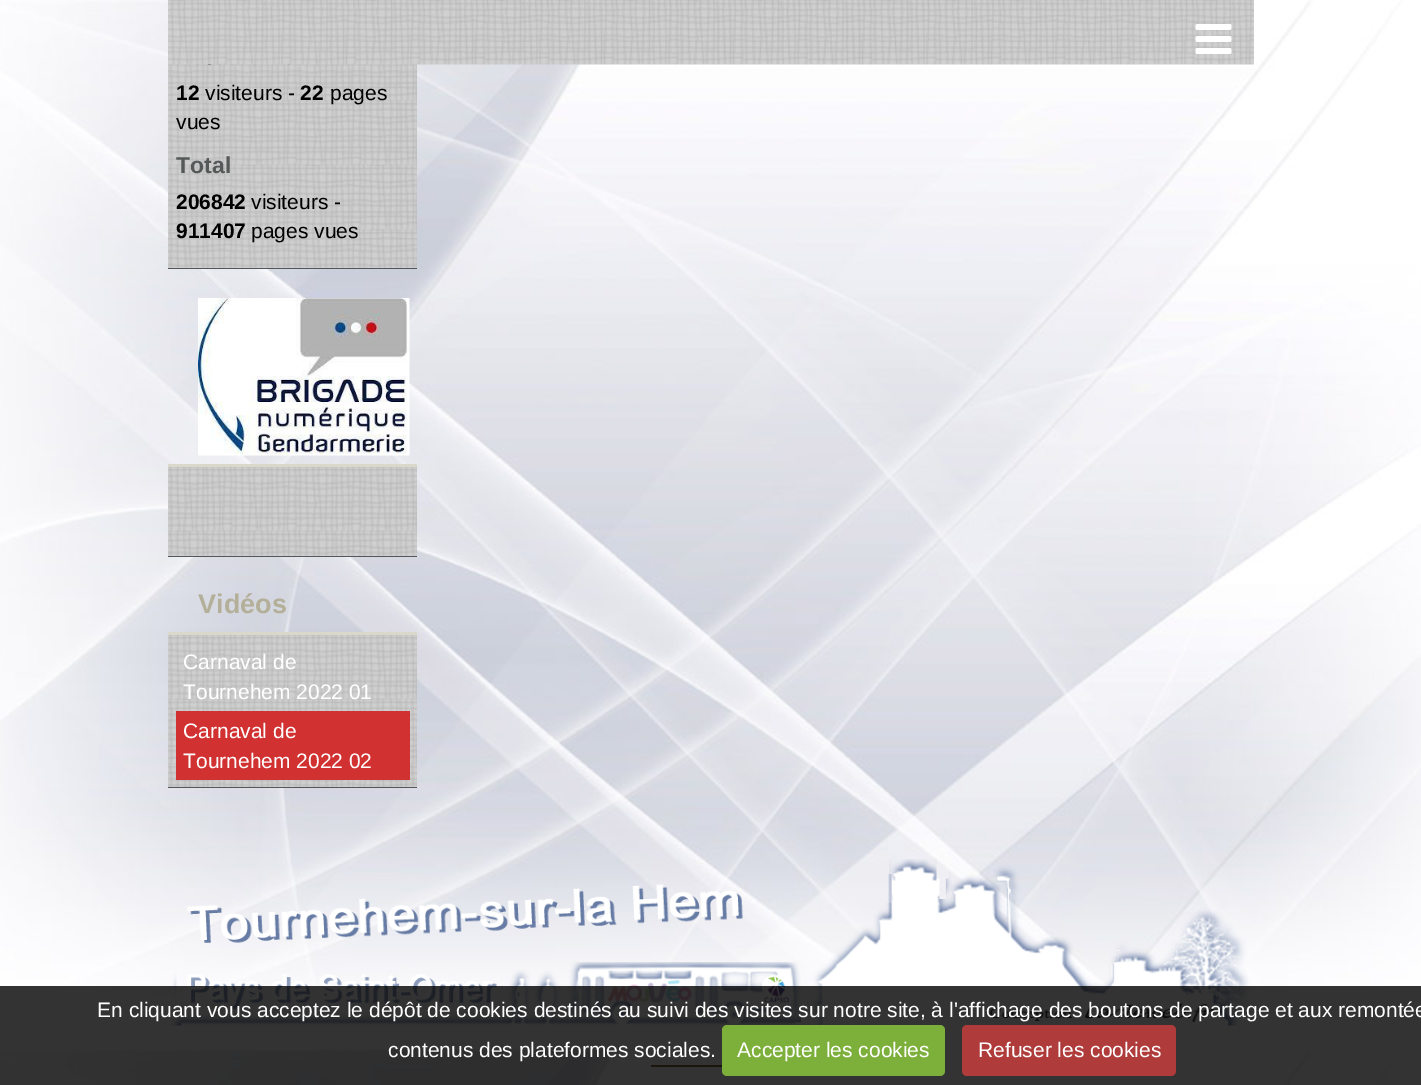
%!PS
<< /PageSize [1421 1085] /PageUsesTransparency true >> setpagedevice
/fl/fill load def
/co { dup -16 bitshift 255 div exch dup -8 bitshift 255 and 255 div exch 255 and 255 div setrgbcolor } def
/fn { [ exch dup neg 0 0 3 -1 roll 0 0 ] selectfont } def
/tx { co fn moveto show } def
/bx { co rectfill } def
/al { dup .setfillconstantalpha .setstrokeconstantalpha } def
/rr { 5 dict begin { /r /h /w /y /x } { exch def } forall
  x r add y moveto x w add y 2 copy h add r arct x w add y h add x 1 index r arct
  x y h add x y r arct x y 2 copy exch w add exch r arct closepath end } def
/im { 5 dict begin { /h /w /y /x /name } { exch def } forall
  gsave x y translate w h scale
  w h 8 [w 0 0 h 0 0] name (r) file false 3 colorimage grestore end } def
0 .pushpdf14devicefilter
0 1085 translate 1 -1 scale
4 setmiterlimit
0 0 1421 1085 16#FFFFFF bx
(media/1.raw) 0 0 1421 1085 im
(media/4.raw) 168 64 249 204 im
(media/2.raw) 168 0 1086 65 im
(media/3.raw) 1195 24 37 30 im
168 268 249 1 16#52575B bx
168 464 249 3 16#DAD8CB bx
(media/5.raw) 198 298 212 158 im
168 556 249 1 16#52575B bx
(media/6.raw) 168 467 249 89 im
168 632 249 3 16#DAD8CB bx
168 787 249 1 16#52575B bx
(media/7.raw) 168 635 249 152 im
176 711 234 69 16#D13131 bx
(media/8.raw) 170 859 1079 167 im
651 1065 71 2 16#8B693A bx
0.8 al
0 986 1421 99 16#000000 bx
1 al
16#7DAF3B co
722 1025 223 51 5 rr fl
16#AF3B3B co
962 1025 214 51 5 rr fl
(12) 176 100 /LiberationSans-Bold 21 16#000000 tx
(visiteurs -) 205 100 /LiberationSans-Regular 21 16#000000 tx
(22) 300 100 /LiberationSans-Bold 21 16#000000 tx
(pages) 330 100 /LiberationSans-Regular 21 16#000000 tx
(vues) 176 129 /LiberationSans-Regular 21 16#000000 tx
(Total) 176 173 /LiberationSans-Bold 23 16#565959 tx
(206842) 176 209 /LiberationSans-Bold 21 16#000000 tx
(visiteurs -) 251 209 /LiberationSans-Regular 21 16#000000 tx
(911407) 176 238 /LiberationSans-Bold 21 16#000000 tx
(pages vues) 251 238 /LiberationSans-Regular 21 16#000000 tx
(Vidéos) 198 613 /LiberationSans-Bold 27 16#B3AF99 tx
(Carnaval de) 183 669 /LiberationSans-Regular 21 16#FFFFFF tx
(Tournehem 2022 01) 183 699 /LiberationSans-Regular 21 16#FFFFFF tx
(Carnaval de) 183 738 /LiberationSans-Regular 21 16#FFFFFF tx
(Tournehem 2022 02) 183 768 /LiberationSans-Regular 21 16#FFFFFF tx
(En cliquant vous acceptez le dépôt de cookies destinés au suivi des visites sur notre site, à l'affichage des boutons de partage et aux remontée) 97 1017 /LiberationSans-Regular 21 16#FFFFFF tx
(contenus des plateformes sociales.) 388 1057 /LiberationSans-Regular 21 16#FFFFFF tx
(Accepter les cookies) 737 1057 /LiberationSans-Regular 21 16#FFFFFF tx
(Refuser les cookies) 978 1057 /LiberationSans-Regular 21 16#FFFFFF tx
.poppdf14devicefilter showpage
